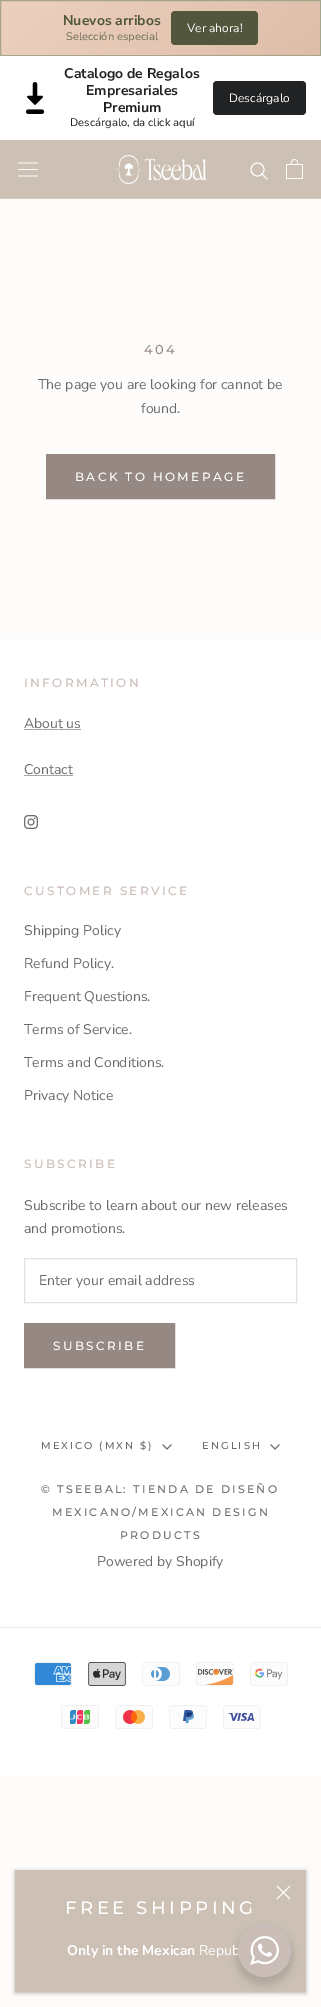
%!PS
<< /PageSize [321 2007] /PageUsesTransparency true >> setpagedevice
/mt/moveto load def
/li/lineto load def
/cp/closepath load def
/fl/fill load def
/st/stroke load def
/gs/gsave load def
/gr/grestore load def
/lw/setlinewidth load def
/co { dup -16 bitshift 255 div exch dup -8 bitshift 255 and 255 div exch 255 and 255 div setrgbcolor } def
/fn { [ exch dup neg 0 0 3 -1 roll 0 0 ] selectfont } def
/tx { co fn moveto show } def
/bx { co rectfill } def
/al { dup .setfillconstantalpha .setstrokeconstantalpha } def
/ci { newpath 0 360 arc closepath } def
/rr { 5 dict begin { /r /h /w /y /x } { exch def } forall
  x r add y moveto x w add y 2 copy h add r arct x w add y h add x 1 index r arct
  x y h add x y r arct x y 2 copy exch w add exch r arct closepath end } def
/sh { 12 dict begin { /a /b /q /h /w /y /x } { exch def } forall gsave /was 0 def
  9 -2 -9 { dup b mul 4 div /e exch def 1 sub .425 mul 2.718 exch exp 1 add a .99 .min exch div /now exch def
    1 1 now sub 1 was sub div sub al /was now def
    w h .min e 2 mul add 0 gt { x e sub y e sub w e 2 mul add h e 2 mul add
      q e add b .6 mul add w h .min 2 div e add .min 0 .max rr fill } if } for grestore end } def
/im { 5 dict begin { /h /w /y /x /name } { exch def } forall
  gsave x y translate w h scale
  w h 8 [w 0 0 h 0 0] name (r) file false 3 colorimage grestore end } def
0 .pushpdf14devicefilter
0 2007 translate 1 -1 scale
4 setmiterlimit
0 0 321 2007 16#FEFCFB bx
gs 1 1 mt 320 1 li 320 55 li 1 55 li cp clip newpath
<< /ShadingType 2 /ColorSpace /DeviceRGB /Coords [78 -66 243 122] /Extend [true true] /Function << /FunctionType 2 /Domain [0 1] /C0 [.929 .816 .745] /C1 [.867 .745 .663] /N 1 >> >> shfill gr
16#A5A58D co
.5 .5 320 55 rectstroke
16#52563C co
171 11 87 34 4 rr fl
0 56 321 84 16#FFFFFF bx
(media/1.raw) 25 82 20 32 im
16#202223 co
213 81 93 34 4 rr fl
0 140 321 58 16#CCC1B4 bx
0 198 321 1 16#D4CABF bx
(media/2.raw) 18 162 20 15 im
(media/3.raw) 116 155 90 29 im
16#FEFCFB co
2 setlinecap
267 179 mt 262 174 li st
0 setlinecap
257.5 169.5 6.5 ci st
(media/4.raw) 286 159 17 20 im
16#968984 co
46.5 454.5 228 44 rectstroke
47 455 227 43 16#968984 bx
0 639 321 1137 16#FFFFFF bx
24 729 57 1 16#A6A6A6 bx
24 775 49 1 16#A6A6A6 bx
(media/5.raw) 24 815 14 14 im
16#E3E1E0 co
24.5 1258.5 272 44 rectstroke
16#968984 co
24.5 1323.5 150 44 rectstroke
25 1324 149 43 16#968984 bx
16#6A6A6A co
2 setlinecap
171 1445 mt 167 1449 li 163 1445 li st
279 1445 mt 275 1449 li 271 1445 li st
0 1627 321 1 16#E9E9E9 bx
(media/6.raw) 34 1662 38 24 im
(media/7.raw) 88 1662 38 24 im
(media/8.raw) 142 1662 38 24 im
(media/9.raw) 196 1662 38 24 im
(media/10.raw) 250 1662 38 24 im
(media/11.raw) 61 1705 38 24 im
(media/12.raw) 115 1705 38 24 im
(media/13.raw) 169 1705 38 24 im
(media/14.raw) 223 1705 38 24 im
16#000000 co
15 1871 291 122 0 2 .3 sh
15 1870 291 122 16#CCC1B4 bx
16#FFFFFF co
.9 lw
0 setlinecap
290 1886 mt 277 1899 li 290 1899 mt 277 1886 li st
16#000000 co
236 1928 57 57 28.5 4 .14 sh
(Nuevos arribos) 63 25 /NunitoSans-Bold 14 16#52563C tx
(Selección especial) 66 40 /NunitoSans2-Regular 11 16#6B705C tx
(Ver ahora!) 187 32 /NunitoSans-Regular 12 16#FFFFFF tx
(Catalogo de Regalos) 64 78 /NunitoSans-Bold 14 16#202223 tx
(Empresariales) 86 95 /NunitoSans-Bold 14 16#202223 tx
(Premium) 103 112 /NunitoSans-Bold 14 16#202223 tx
(Descárgalo, da click aquí) 70 126 /NunitoSans2-Regular 11 16#202223 tx
(Descárgalo) 229 102 /NunitoSans-Regular 12 16#FFFFFF tx
/Montserrat-Medium 13 fn
16#968984 co
144 354 mt 2.5 0 (404) ashow
(The page you are looking for cannot be) 38 389 /NunitoSans-Regular 14 16#6A6A6A tx
(found.) 141 413 /NunitoSans-Regular 14 16#6A6A6A tx
/Montserrat-Medium 12 fn
16#FFFFFF co
75 481 mt 2.4 0 (BACK TO HOMEPAGE) ashow
16#CABCB6 co
24 687 mt 2.4 0 (INFORMATION) ashow
(About us) 24 728 /NunitoSans-Regular 14 16#6A6A6A tx
(Contact) 24 774 /NunitoSans-Regular 14 16#6A6A6A tx
/Montserrat-Medium 12 fn
16#CABCB6 co
24 895 mt 2.4 0 (CUSTOMER SERVICE) ashow
(Shipping Policy) 24 935 /NunitoSans-Regular 14 16#6A6A6A tx
(Refund Policy.) 24 968 /NunitoSans-Regular 14 16#6A6A6A tx
(Frequent Questions.) 24 1001 /NunitoSans-Regular 14 16#6A6A6A tx
(Terms of Service.) 24 1034 /NunitoSans-Regular 14 16#6A6A6A tx
(Terms and Conditions.) 24 1067 /NunitoSans-Regular 14 16#6A6A6A tx
(Privacy Notice) 24 1100 /NunitoSans-Regular 14 16#6A6A6A tx
/Montserrat-Medium 12 fn
16#CABCB6 co
24 1168 mt 2.4 0 (SUBSCRIBE) ashow
(Subscribe to learn about our new releases) 24 1210 /NunitoSans-Regular 14 16#6A6A6A tx
(and promotions.) 24 1233 /NunitoSans-Regular 14 16#6A6A6A tx
(Enter your email address) 39 1285 /NunitoSans-Regular 14 16#6A6A6A tx
/Montserrat-Medium 12 fn
16#FFFFFF co
53 1350 mt 2.4 0 (SUBSCRIBE) ashow
/Montserrat-Medium 10 fn
16#6A6A6A co
41 1449 mt 2 0 (MEXICO \(MXN $\)) ashow
202 1449 mt 2 0 (ENGLISH) ashow
/Montserrat-Medium 11 fn
41 1493 mt 2.2 0 (© TSEEBAL: TIENDA DE DISEÑO) ashow
52 1516 mt 2.2 0 (MEXICANO/MEXICAN DESIGN) ashow
120 1539 mt 2.2 0 (PRODUCTS) ashow
(Powered by Shopify) 97 1566 /NunitoSans-Regular 14 16#6A6A6A tx
/Montserrat-Medium 18 fn
16#FFFFFF co
65 1914 mt 3.6 0 (FREE SHIPPING) ashow
(Only in the Mexican) 67 1955 /NunitoSans-Bold 14 16#FFFFFF tx
(Repub) 199 1955 /NunitoSans-Regular 14 16#FFFFFF tx
16#CABCB6 co
264.5 1950.5 26.5 ci fl
(media/15.raw) 250 1936 29 29 im
.poppdf14devicefilter showpage
